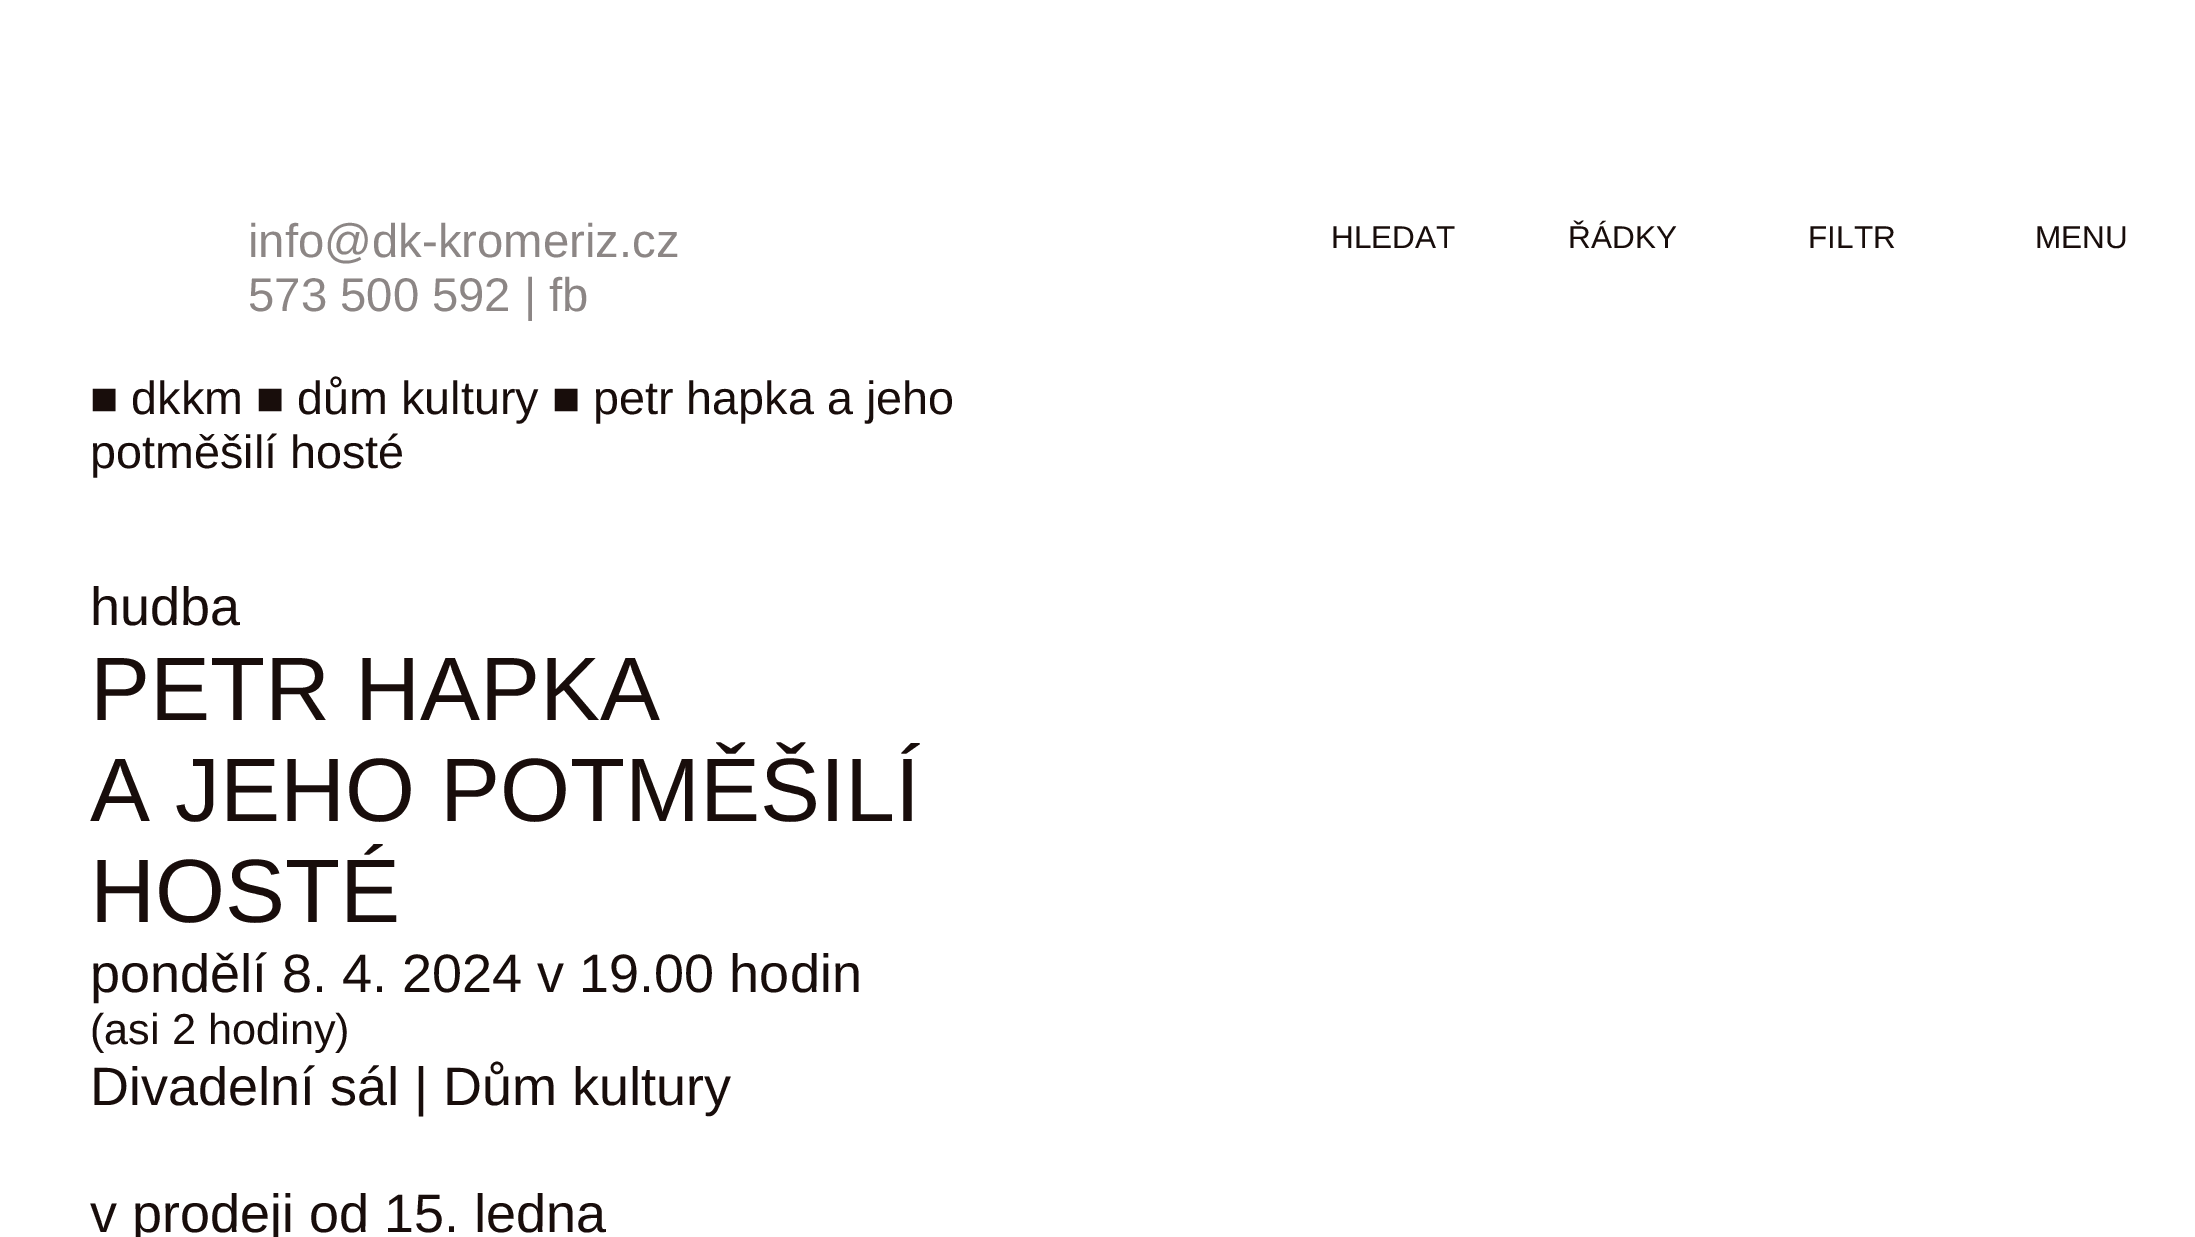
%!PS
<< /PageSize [2195 1237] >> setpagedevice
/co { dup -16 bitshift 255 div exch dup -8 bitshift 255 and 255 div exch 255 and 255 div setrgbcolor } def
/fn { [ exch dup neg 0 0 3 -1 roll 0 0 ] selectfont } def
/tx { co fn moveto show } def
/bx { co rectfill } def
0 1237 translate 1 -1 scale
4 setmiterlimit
0 0 2195 1237 16#FFFFFF bx
(info@dk-kromeriz.cz) 248 257 /LiberationSans-Regular 47.25 16#8C8685 tx
(573 500 592 | fb) 248 311 /LiberationSans-Regular 47.25 16#8C8685 tx
(HLEDAT) 1331 248 /LiberationSans-Regular 31.5 16#180D0B tx
(ŘÁDKY) 1568 248 /LiberationSans-Regular 31.5 16#180D0B tx
(FILTR) 1808 248 /LiberationSans-Regular 31.5 16#180D0B tx
(MENU) 2035 248 /LiberationSans-Regular 31.5 16#180D0B tx
(■ dkkm ■ dům kultury ■ petr hapka a jeho) 90 414 /LiberationSans-Regular 46.75 16#180D0B tx
(potměšilí hosté) 90 468 /LiberationSans-Regular 46.75 16#180D0B tx
(hudba) 90 625 /LiberationSans-Regular 54 16#180D0B tx
(PETR HAPKA) 90 720 /LiberationSans-Regular 90 16#180D0B tx
(A JEHO POTMĚŠILÍ) 90 821 /LiberationSans-Regular 90 16#180D0B tx
(HOSTÉ) 90 922 /LiberationSans-Regular 90 16#180D0B tx
(pondělí 8. 4. 2024 v 19.00 hodin) 90 992 /LiberationSans-Regular 54 16#180D0B tx
(\(asi 2 hodiny\)) 90 1044 /LiberationSans-Regular 43.25 16#180D0B tx
(Divadelní sál | Dům kultury) 90 1105 /LiberationSans-Regular 54 16#180D0B tx
(v prodeji od 15. ledna) 90 1232 /LiberationSans-Regular 54 16#180D0B tx
showpage
